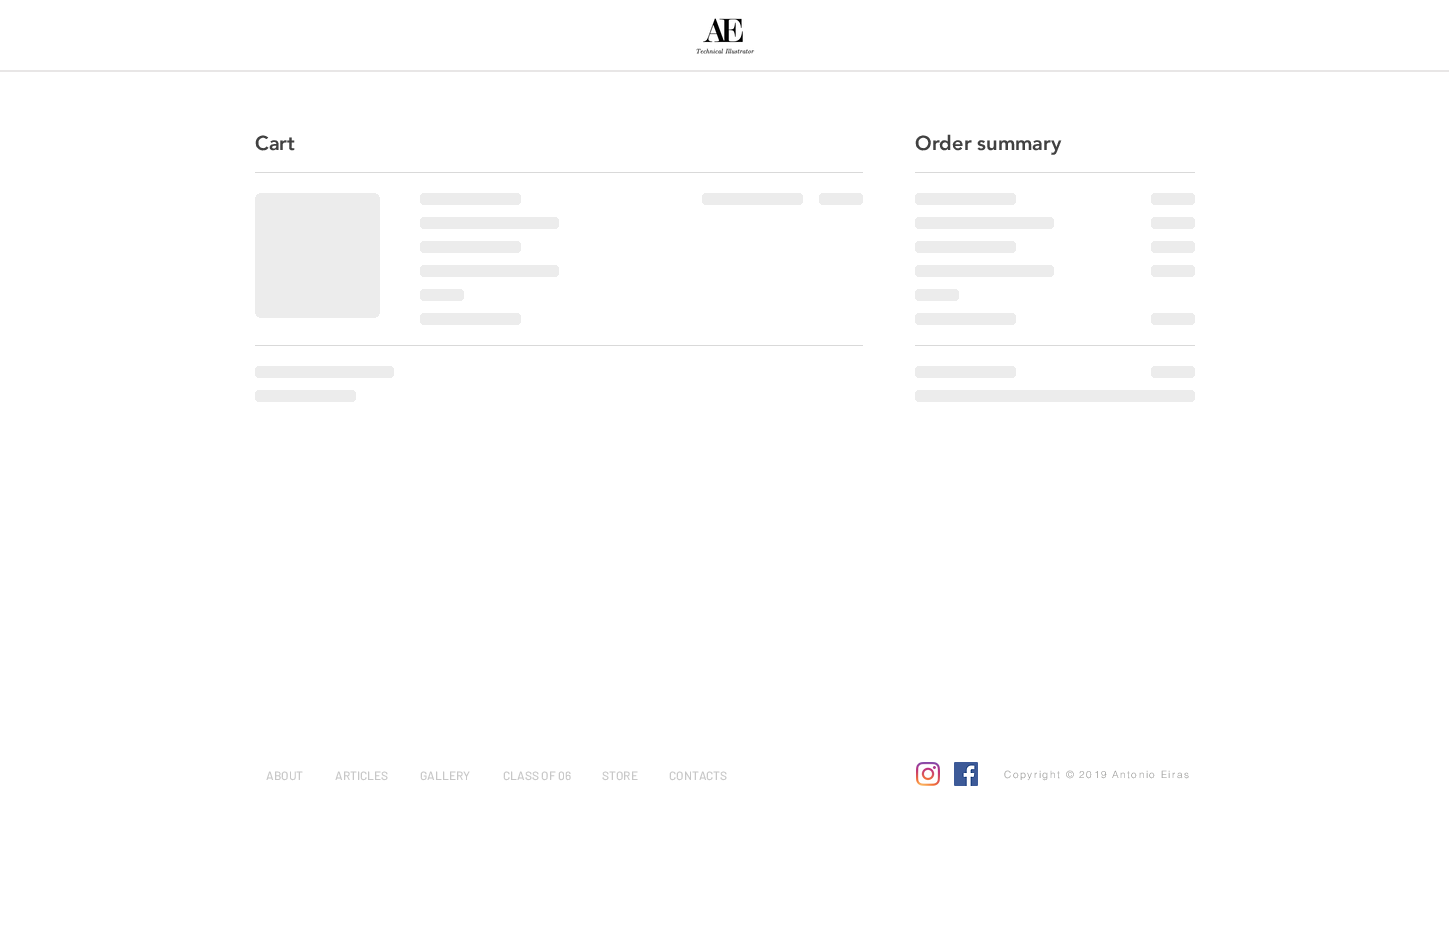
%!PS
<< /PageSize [1449 940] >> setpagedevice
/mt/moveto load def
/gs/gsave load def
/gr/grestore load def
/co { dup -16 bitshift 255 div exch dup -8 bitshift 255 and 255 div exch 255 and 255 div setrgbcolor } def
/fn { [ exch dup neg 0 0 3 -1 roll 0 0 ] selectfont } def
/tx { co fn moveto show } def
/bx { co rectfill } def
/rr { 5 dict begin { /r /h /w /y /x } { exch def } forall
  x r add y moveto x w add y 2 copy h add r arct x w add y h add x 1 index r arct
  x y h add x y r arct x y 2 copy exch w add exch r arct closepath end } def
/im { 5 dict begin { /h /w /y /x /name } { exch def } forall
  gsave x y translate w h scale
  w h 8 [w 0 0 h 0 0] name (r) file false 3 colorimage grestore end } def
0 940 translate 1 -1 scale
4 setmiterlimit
0 0 1449 940 16#FFFFFF bx
(media/1.raw) 696 18 59 36 im
0 70 1449 2 16#E8E6E6 bx
255 172 608 1 16#D9D9D9 bx
gs 255 193 125 125 8 rr clip newpath
<< /ShadingType 2 /ColorSpace /DeviceRGB /Coords [255 256 755 255] /Extend [true true] /Function << /FunctionType 3 /Domain [0 1] /Functions [<< /FunctionType 2 /Domain [0 1] /C0 [.925 .925 .925] /C1 [.925 .925 .925] /N 1 >> << /FunctionType 2 /Domain [0 1] /C0 [.925 .925 .925] /C1 [.851 .851 .851] /N 1 >> << /FunctionType 2 /Domain [0 1] /C0 [.851 .851 .851] /C1 [.925 .925 .925] /N 1 >> << /FunctionType 2 /Domain [0 1] /C0 [.925 .925 .925] /C1 [.925 .925 .925] /N 1 >>] /Bounds [.25 .37 .63] /Encode [0 1 0 1 0 1 0 1] >> >> shfill gr
gs 420 193 101 12 6 rr clip newpath
<< /ShadingType 2 /ColorSpace /DeviceRGB /Coords [420 199 824 199] /Extend [true true] /Function << /FunctionType 3 /Domain [0 1] /Functions [<< /FunctionType 2 /Domain [0 1] /C0 [.925 .925 .925] /C1 [.925 .925 .925] /N 1 >> << /FunctionType 2 /Domain [0 1] /C0 [.925 .925 .925] /C1 [.851 .851 .851] /N 1 >> << /FunctionType 2 /Domain [0 1] /C0 [.851 .851 .851] /C1 [.925 .925 .925] /N 1 >> << /FunctionType 2 /Domain [0 1] /C0 [.925 .925 .925] /C1 [.925 .925 .925] /N 1 >>] /Bounds [.25 .37 .63] /Encode [0 1 0 1 0 1 0 1] >> >> shfill gr
gs 420 217 139 12 6 rr clip newpath
<< /ShadingType 2 /ColorSpace /DeviceRGB /Coords [420 223 976 223] /Extend [true true] /Function << /FunctionType 3 /Domain [0 1] /Functions [<< /FunctionType 2 /Domain [0 1] /C0 [.925 .925 .925] /C1 [.925 .925 .925] /N 1 >> << /FunctionType 2 /Domain [0 1] /C0 [.925 .925 .925] /C1 [.851 .851 .851] /N 1 >> << /FunctionType 2 /Domain [0 1] /C0 [.851 .851 .851] /C1 [.925 .925 .925] /N 1 >> << /FunctionType 2 /Domain [0 1] /C0 [.925 .925 .925] /C1 [.925 .925 .925] /N 1 >>] /Bounds [.25 .37 .63] /Encode [0 1 0 1 0 1 0 1] >> >> shfill gr
gs 420 241 101 12 6 rr clip newpath
<< /ShadingType 2 /ColorSpace /DeviceRGB /Coords [420 247 824 247] /Extend [true true] /Function << /FunctionType 3 /Domain [0 1] /Functions [<< /FunctionType 2 /Domain [0 1] /C0 [.925 .925 .925] /C1 [.925 .925 .925] /N 1 >> << /FunctionType 2 /Domain [0 1] /C0 [.925 .925 .925] /C1 [.851 .851 .851] /N 1 >> << /FunctionType 2 /Domain [0 1] /C0 [.851 .851 .851] /C1 [.925 .925 .925] /N 1 >> << /FunctionType 2 /Domain [0 1] /C0 [.925 .925 .925] /C1 [.925 .925 .925] /N 1 >>] /Bounds [.25 .37 .63] /Encode [0 1 0 1 0 1 0 1] >> >> shfill gr
gs 420 265 139 12 6 rr clip newpath
<< /ShadingType 2 /ColorSpace /DeviceRGB /Coords [420 271 976 271] /Extend [true true] /Function << /FunctionType 3 /Domain [0 1] /Functions [<< /FunctionType 2 /Domain [0 1] /C0 [.925 .925 .925] /C1 [.925 .925 .925] /N 1 >> << /FunctionType 2 /Domain [0 1] /C0 [.925 .925 .925] /C1 [.851 .851 .851] /N 1 >> << /FunctionType 2 /Domain [0 1] /C0 [.851 .851 .851] /C1 [.925 .925 .925] /N 1 >> << /FunctionType 2 /Domain [0 1] /C0 [.925 .925 .925] /C1 [.925 .925 .925] /N 1 >>] /Bounds [.25 .37 .63] /Encode [0 1 0 1 0 1 0 1] >> >> shfill gr
gs 420 289 44 12 6 rr clip newpath
<< /ShadingType 2 /ColorSpace /DeviceRGB /Coords [420 295 596 295] /Extend [true true] /Function << /FunctionType 3 /Domain [0 1] /Functions [<< /FunctionType 2 /Domain [0 1] /C0 [.925 .925 .925] /C1 [.925 .925 .925] /N 1 >> << /FunctionType 2 /Domain [0 1] /C0 [.925 .925 .925] /C1 [.851 .851 .851] /N 1 >> << /FunctionType 2 /Domain [0 1] /C0 [.851 .851 .851] /C1 [.925 .925 .925] /N 1 >> << /FunctionType 2 /Domain [0 1] /C0 [.925 .925 .925] /C1 [.925 .925 .925] /N 1 >>] /Bounds [.25 .37 .63] /Encode [0 1 0 1 0 1 0 1] >> >> shfill gr
gs 420 313 101 12 6 rr clip newpath
<< /ShadingType 2 /ColorSpace /DeviceRGB /Coords [420 319 824 319] /Extend [true true] /Function << /FunctionType 3 /Domain [0 1] /Functions [<< /FunctionType 2 /Domain [0 1] /C0 [.925 .925 .925] /C1 [.925 .925 .925] /N 1 >> << /FunctionType 2 /Domain [0 1] /C0 [.925 .925 .925] /C1 [.851 .851 .851] /N 1 >> << /FunctionType 2 /Domain [0 1] /C0 [.851 .851 .851] /C1 [.925 .925 .925] /N 1 >> << /FunctionType 2 /Domain [0 1] /C0 [.925 .925 .925] /C1 [.925 .925 .925] /N 1 >>] /Bounds [.25 .37 .63] /Encode [0 1 0 1 0 1 0 1] >> >> shfill gr
gs 702 193 101 12 6 rr clip newpath
<< /ShadingType 2 /ColorSpace /DeviceRGB /Coords [702 199 1106 199] /Extend [true true] /Function << /FunctionType 3 /Domain [0 1] /Functions [<< /FunctionType 2 /Domain [0 1] /C0 [.925 .925 .925] /C1 [.925 .925 .925] /N 1 >> << /FunctionType 2 /Domain [0 1] /C0 [.925 .925 .925] /C1 [.851 .851 .851] /N 1 >> << /FunctionType 2 /Domain [0 1] /C0 [.851 .851 .851] /C1 [.925 .925 .925] /N 1 >> << /FunctionType 2 /Domain [0 1] /C0 [.925 .925 .925] /C1 [.925 .925 .925] /N 1 >>] /Bounds [.25 .37 .63] /Encode [0 1 0 1 0 1 0 1] >> >> shfill gr
gs 819 193 44 12 6 rr clip newpath
<< /ShadingType 2 /ColorSpace /DeviceRGB /Coords [819 199 995 199] /Extend [true true] /Function << /FunctionType 3 /Domain [0 1] /Functions [<< /FunctionType 2 /Domain [0 1] /C0 [.925 .925 .925] /C1 [.925 .925 .925] /N 1 >> << /FunctionType 2 /Domain [0 1] /C0 [.925 .925 .925] /C1 [.851 .851 .851] /N 1 >> << /FunctionType 2 /Domain [0 1] /C0 [.851 .851 .851] /C1 [.925 .925 .925] /N 1 >> << /FunctionType 2 /Domain [0 1] /C0 [.925 .925 .925] /C1 [.925 .925 .925] /N 1 >>] /Bounds [.25 .37 .63] /Encode [0 1 0 1 0 1 0 1] >> >> shfill gr
255 345 608 1 16#D9D9D9 bx
gs 255 366 139 12 6 rr clip newpath
<< /ShadingType 2 /ColorSpace /DeviceRGB /Coords [255 372 811 372] /Extend [true true] /Function << /FunctionType 3 /Domain [0 1] /Functions [<< /FunctionType 2 /Domain [0 1] /C0 [.925 .925 .925] /C1 [.925 .925 .925] /N 1 >> << /FunctionType 2 /Domain [0 1] /C0 [.925 .925 .925] /C1 [.851 .851 .851] /N 1 >> << /FunctionType 2 /Domain [0 1] /C0 [.851 .851 .851] /C1 [.925 .925 .925] /N 1 >> << /FunctionType 2 /Domain [0 1] /C0 [.925 .925 .925] /C1 [.925 .925 .925] /N 1 >>] /Bounds [.25 .37 .63] /Encode [0 1 0 1 0 1 0 1] >> >> shfill gr
gs 255 390 101 12 6 rr clip newpath
<< /ShadingType 2 /ColorSpace /DeviceRGB /Coords [255 396 659 396] /Extend [true true] /Function << /FunctionType 3 /Domain [0 1] /Functions [<< /FunctionType 2 /Domain [0 1] /C0 [.925 .925 .925] /C1 [.925 .925 .925] /N 1 >> << /FunctionType 2 /Domain [0 1] /C0 [.925 .925 .925] /C1 [.851 .851 .851] /N 1 >> << /FunctionType 2 /Domain [0 1] /C0 [.851 .851 .851] /C1 [.925 .925 .925] /N 1 >> << /FunctionType 2 /Domain [0 1] /C0 [.925 .925 .925] /C1 [.925 .925 .925] /N 1 >>] /Bounds [.25 .37 .63] /Encode [0 1 0 1 0 1 0 1] >> >> shfill gr
915 172 280 1 16#D9D9D9 bx
gs 915 193 101 12 6 rr clip newpath
<< /ShadingType 2 /ColorSpace /DeviceRGB /Coords [915 199 1319 199] /Extend [true true] /Function << /FunctionType 3 /Domain [0 1] /Functions [<< /FunctionType 2 /Domain [0 1] /C0 [.925 .925 .925] /C1 [.925 .925 .925] /N 1 >> << /FunctionType 2 /Domain [0 1] /C0 [.925 .925 .925] /C1 [.851 .851 .851] /N 1 >> << /FunctionType 2 /Domain [0 1] /C0 [.851 .851 .851] /C1 [.925 .925 .925] /N 1 >> << /FunctionType 2 /Domain [0 1] /C0 [.925 .925 .925] /C1 [.925 .925 .925] /N 1 >>] /Bounds [.25 .37 .63] /Encode [0 1 0 1 0 1 0 1] >> >> shfill gr
gs 1151 193 44 12 6 rr clip newpath
<< /ShadingType 2 /ColorSpace /DeviceRGB /Coords [1151 199 1327 199] /Extend [true true] /Function << /FunctionType 3 /Domain [0 1] /Functions [<< /FunctionType 2 /Domain [0 1] /C0 [.925 .925 .925] /C1 [.925 .925 .925] /N 1 >> << /FunctionType 2 /Domain [0 1] /C0 [.925 .925 .925] /C1 [.851 .851 .851] /N 1 >> << /FunctionType 2 /Domain [0 1] /C0 [.851 .851 .851] /C1 [.925 .925 .925] /N 1 >> << /FunctionType 2 /Domain [0 1] /C0 [.925 .925 .925] /C1 [.925 .925 .925] /N 1 >>] /Bounds [.25 .37 .63] /Encode [0 1 0 1 0 1 0 1] >> >> shfill gr
gs 915 217 139 12 6 rr clip newpath
<< /ShadingType 2 /ColorSpace /DeviceRGB /Coords [915 223 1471 223] /Extend [true true] /Function << /FunctionType 3 /Domain [0 1] /Functions [<< /FunctionType 2 /Domain [0 1] /C0 [.925 .925 .925] /C1 [.925 .925 .925] /N 1 >> << /FunctionType 2 /Domain [0 1] /C0 [.925 .925 .925] /C1 [.851 .851 .851] /N 1 >> << /FunctionType 2 /Domain [0 1] /C0 [.851 .851 .851] /C1 [.925 .925 .925] /N 1 >> << /FunctionType 2 /Domain [0 1] /C0 [.925 .925 .925] /C1 [.925 .925 .925] /N 1 >>] /Bounds [.25 .37 .63] /Encode [0 1 0 1 0 1 0 1] >> >> shfill gr
gs 1151 217 44 12 6 rr clip newpath
<< /ShadingType 2 /ColorSpace /DeviceRGB /Coords [1151 223 1327 223] /Extend [true true] /Function << /FunctionType 3 /Domain [0 1] /Functions [<< /FunctionType 2 /Domain [0 1] /C0 [.925 .925 .925] /C1 [.925 .925 .925] /N 1 >> << /FunctionType 2 /Domain [0 1] /C0 [.925 .925 .925] /C1 [.851 .851 .851] /N 1 >> << /FunctionType 2 /Domain [0 1] /C0 [.851 .851 .851] /C1 [.925 .925 .925] /N 1 >> << /FunctionType 2 /Domain [0 1] /C0 [.925 .925 .925] /C1 [.925 .925 .925] /N 1 >>] /Bounds [.25 .37 .63] /Encode [0 1 0 1 0 1 0 1] >> >> shfill gr
gs 915 241 101 12 6 rr clip newpath
<< /ShadingType 2 /ColorSpace /DeviceRGB /Coords [915 247 1319 247] /Extend [true true] /Function << /FunctionType 3 /Domain [0 1] /Functions [<< /FunctionType 2 /Domain [0 1] /C0 [.925 .925 .925] /C1 [.925 .925 .925] /N 1 >> << /FunctionType 2 /Domain [0 1] /C0 [.925 .925 .925] /C1 [.851 .851 .851] /N 1 >> << /FunctionType 2 /Domain [0 1] /C0 [.851 .851 .851] /C1 [.925 .925 .925] /N 1 >> << /FunctionType 2 /Domain [0 1] /C0 [.925 .925 .925] /C1 [.925 .925 .925] /N 1 >>] /Bounds [.25 .37 .63] /Encode [0 1 0 1 0 1 0 1] >> >> shfill gr
gs 1151 241 44 12 6 rr clip newpath
<< /ShadingType 2 /ColorSpace /DeviceRGB /Coords [1151 247 1327 247] /Extend [true true] /Function << /FunctionType 3 /Domain [0 1] /Functions [<< /FunctionType 2 /Domain [0 1] /C0 [.925 .925 .925] /C1 [.925 .925 .925] /N 1 >> << /FunctionType 2 /Domain [0 1] /C0 [.925 .925 .925] /C1 [.851 .851 .851] /N 1 >> << /FunctionType 2 /Domain [0 1] /C0 [.851 .851 .851] /C1 [.925 .925 .925] /N 1 >> << /FunctionType 2 /Domain [0 1] /C0 [.925 .925 .925] /C1 [.925 .925 .925] /N 1 >>] /Bounds [.25 .37 .63] /Encode [0 1 0 1 0 1 0 1] >> >> shfill gr
gs 915 265 139 12 6 rr clip newpath
<< /ShadingType 2 /ColorSpace /DeviceRGB /Coords [915 271 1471 271] /Extend [true true] /Function << /FunctionType 3 /Domain [0 1] /Functions [<< /FunctionType 2 /Domain [0 1] /C0 [.925 .925 .925] /C1 [.925 .925 .925] /N 1 >> << /FunctionType 2 /Domain [0 1] /C0 [.925 .925 .925] /C1 [.851 .851 .851] /N 1 >> << /FunctionType 2 /Domain [0 1] /C0 [.851 .851 .851] /C1 [.925 .925 .925] /N 1 >> << /FunctionType 2 /Domain [0 1] /C0 [.925 .925 .925] /C1 [.925 .925 .925] /N 1 >>] /Bounds [.25 .37 .63] /Encode [0 1 0 1 0 1 0 1] >> >> shfill gr
gs 1151 265 44 12 6 rr clip newpath
<< /ShadingType 2 /ColorSpace /DeviceRGB /Coords [1151 271 1327 271] /Extend [true true] /Function << /FunctionType 3 /Domain [0 1] /Functions [<< /FunctionType 2 /Domain [0 1] /C0 [.925 .925 .925] /C1 [.925 .925 .925] /N 1 >> << /FunctionType 2 /Domain [0 1] /C0 [.925 .925 .925] /C1 [.851 .851 .851] /N 1 >> << /FunctionType 2 /Domain [0 1] /C0 [.851 .851 .851] /C1 [.925 .925 .925] /N 1 >> << /FunctionType 2 /Domain [0 1] /C0 [.925 .925 .925] /C1 [.925 .925 .925] /N 1 >>] /Bounds [.25 .37 .63] /Encode [0 1 0 1 0 1 0 1] >> >> shfill gr
gs 915 289 44 12 6 rr clip newpath
<< /ShadingType 2 /ColorSpace /DeviceRGB /Coords [915 295 1091 295] /Extend [true true] /Function << /FunctionType 3 /Domain [0 1] /Functions [<< /FunctionType 2 /Domain [0 1] /C0 [.925 .925 .925] /C1 [.925 .925 .925] /N 1 >> << /FunctionType 2 /Domain [0 1] /C0 [.925 .925 .925] /C1 [.851 .851 .851] /N 1 >> << /FunctionType 2 /Domain [0 1] /C0 [.851 .851 .851] /C1 [.925 .925 .925] /N 1 >> << /FunctionType 2 /Domain [0 1] /C0 [.925 .925 .925] /C1 [.925 .925 .925] /N 1 >>] /Bounds [.25 .37 .63] /Encode [0 1 0 1 0 1 0 1] >> >> shfill gr
gs 915 313 101 12 6 rr clip newpath
<< /ShadingType 2 /ColorSpace /DeviceRGB /Coords [915 319 1319 319] /Extend [true true] /Function << /FunctionType 3 /Domain [0 1] /Functions [<< /FunctionType 2 /Domain [0 1] /C0 [.925 .925 .925] /C1 [.925 .925 .925] /N 1 >> << /FunctionType 2 /Domain [0 1] /C0 [.925 .925 .925] /C1 [.851 .851 .851] /N 1 >> << /FunctionType 2 /Domain [0 1] /C0 [.851 .851 .851] /C1 [.925 .925 .925] /N 1 >> << /FunctionType 2 /Domain [0 1] /C0 [.925 .925 .925] /C1 [.925 .925 .925] /N 1 >>] /Bounds [.25 .37 .63] /Encode [0 1 0 1 0 1 0 1] >> >> shfill gr
gs 1151 313 44 12 6 rr clip newpath
<< /ShadingType 2 /ColorSpace /DeviceRGB /Coords [1151 319 1327 319] /Extend [true true] /Function << /FunctionType 3 /Domain [0 1] /Functions [<< /FunctionType 2 /Domain [0 1] /C0 [.925 .925 .925] /C1 [.925 .925 .925] /N 1 >> << /FunctionType 2 /Domain [0 1] /C0 [.925 .925 .925] /C1 [.851 .851 .851] /N 1 >> << /FunctionType 2 /Domain [0 1] /C0 [.851 .851 .851] /C1 [.925 .925 .925] /N 1 >> << /FunctionType 2 /Domain [0 1] /C0 [.925 .925 .925] /C1 [.925 .925 .925] /N 1 >>] /Bounds [.25 .37 .63] /Encode [0 1 0 1 0 1 0 1] >> >> shfill gr
915 345 280 1 16#D9D9D9 bx
gs 915 366 101 12 6 rr clip newpath
<< /ShadingType 2 /ColorSpace /DeviceRGB /Coords [915 372 1319 372] /Extend [true true] /Function << /FunctionType 3 /Domain [0 1] /Functions [<< /FunctionType 2 /Domain [0 1] /C0 [.925 .925 .925] /C1 [.925 .925 .925] /N 1 >> << /FunctionType 2 /Domain [0 1] /C0 [.925 .925 .925] /C1 [.851 .851 .851] /N 1 >> << /FunctionType 2 /Domain [0 1] /C0 [.851 .851 .851] /C1 [.925 .925 .925] /N 1 >> << /FunctionType 2 /Domain [0 1] /C0 [.925 .925 .925] /C1 [.925 .925 .925] /N 1 >>] /Bounds [.25 .37 .63] /Encode [0 1 0 1 0 1 0 1] >> >> shfill gr
gs 1151 366 44 12 6 rr clip newpath
<< /ShadingType 2 /ColorSpace /DeviceRGB /Coords [1151 372 1327 372] /Extend [true true] /Function << /FunctionType 3 /Domain [0 1] /Functions [<< /FunctionType 2 /Domain [0 1] /C0 [.925 .925 .925] /C1 [.925 .925 .925] /N 1 >> << /FunctionType 2 /Domain [0 1] /C0 [.925 .925 .925] /C1 [.851 .851 .851] /N 1 >> << /FunctionType 2 /Domain [0 1] /C0 [.851 .851 .851] /C1 [.925 .925 .925] /N 1 >> << /FunctionType 2 /Domain [0 1] /C0 [.925 .925 .925] /C1 [.925 .925 .925] /N 1 >>] /Bounds [.25 .37 .63] /Encode [0 1 0 1 0 1 0 1] >> >> shfill gr
gs 915 390 280 12 6 rr clip newpath
<< /ShadingType 2 /ColorSpace /DeviceRGB /Coords [915 396 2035 396] /Extend [true true] /Function << /FunctionType 3 /Domain [0 1] /Functions [<< /FunctionType 2 /Domain [0 1] /C0 [.925 .925 .925] /C1 [.925 .925 .925] /N 1 >> << /FunctionType 2 /Domain [0 1] /C0 [.925 .925 .925] /C1 [.851 .851 .851] /N 1 >> << /FunctionType 2 /Domain [0 1] /C0 [.851 .851 .851] /C1 [.925 .925 .925] /N 1 >> << /FunctionType 2 /Domain [0 1] /C0 [.925 .925 .925] /C1 [.925 .925 .925] /N 1 >>] /Bounds [.25 .37 .63] /Encode [0 1 0 1 0 1 0 1] >> >> shfill gr
(media/2.raw) 916 762 24 24 im
(media/3.raw) 954 762 24 24 im
(Cart) 255 150 /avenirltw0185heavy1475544-Black 20 16#414141 tx
(Order summary) 915 150 /avenirltw0185heavy1475544-Black 20 16#414141 tx
(ABOUT) 266 780 /Barlow-Medium 12 16#C7C7C7 tx
(ARTICLES) 335 780 /Barlow-Medium 12 16#C7C7C7 tx
(GALLERY) 420 780 /Barlow-Medium 12 16#C7C7C7 tx
(CLASS OF 06) 503 780 /Barlow-Medium 12 16#C7C7C7 tx
(STORE) 602 780 /Barlow-Medium 12 16#C7C7C7 tx
(CONTACTS) 669 780 /Barlow-Medium 12 16#C7C7C7 tx
/helvetica-Light 10 fn
16#999997 co
1004 778 mt 1.5 0 (Copyright © 2019 Antonio Eiras) ashow
showpage
